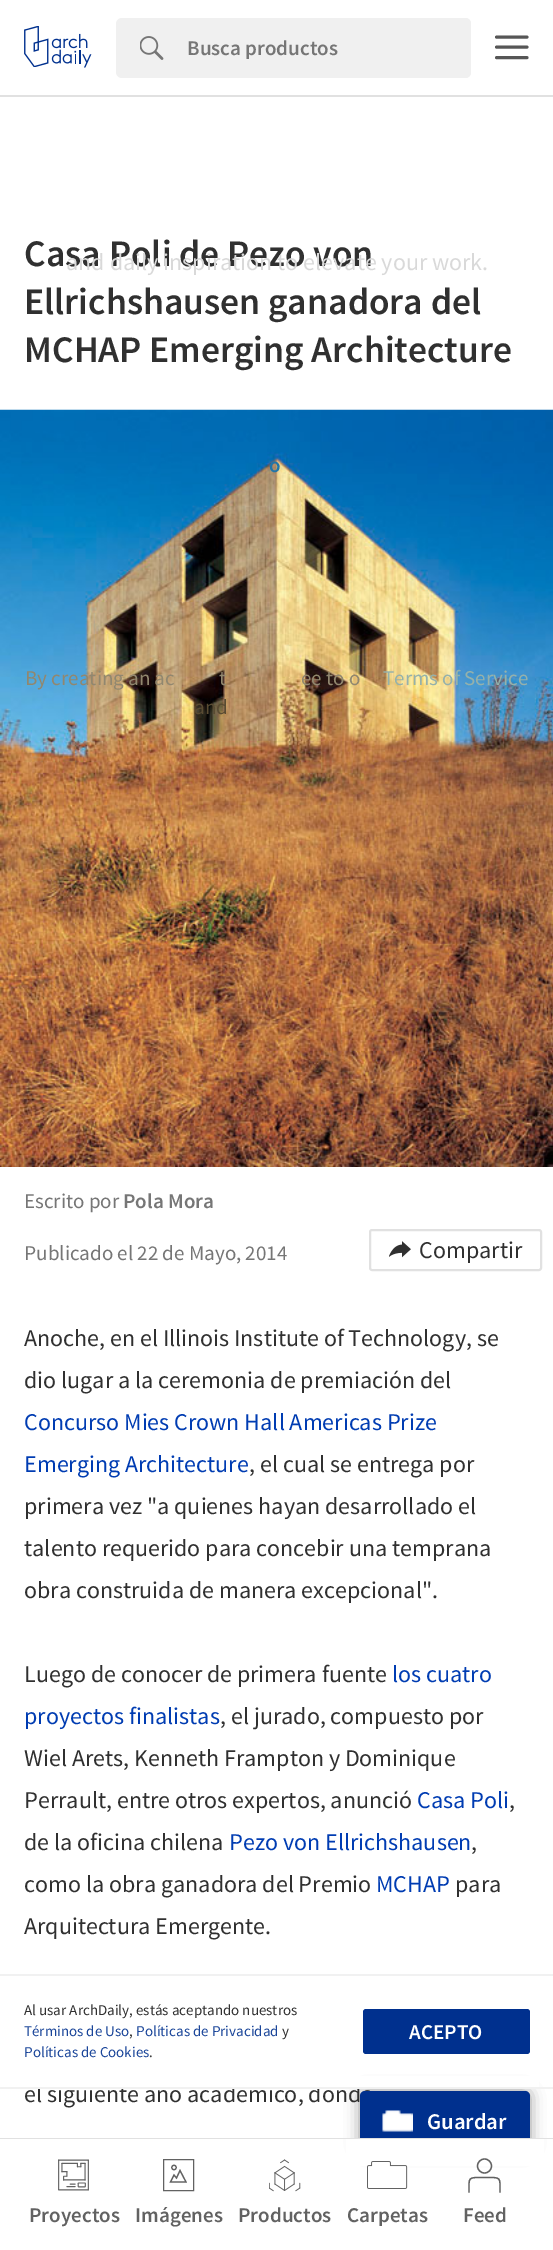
%!PS
<< /PageSize [553 2250] /PageUsesTransparency true >> setpagedevice
/mt/moveto load def
/li/lineto load def
/ct/curveto load def
/cp/closepath load def
/fl/fill load def
/st/stroke load def
/lw/setlinewidth load def
/co { dup -16 bitshift 255 div exch dup -8 bitshift 255 and 255 div exch 255 and 255 div setrgbcolor } def
/fn { [ exch dup neg 0 0 3 -1 roll 0 0 ] selectfont } def
/tx { co fn moveto show } def
/bx { co rectfill } def
/al { dup .setfillconstantalpha .setstrokeconstantalpha } def
/ci { newpath 0 360 arc closepath } def
/rr { 5 dict begin { /r /h /w /y /x } { exch def } forall
  x r add y moveto x w add y 2 copy h add r arct x w add y h add x 1 index r arct
  x y h add x y r arct x y 2 copy exch w add exch r arct closepath end } def
/sh { 12 dict begin { /a /b /q /h /w /y /x } { exch def } forall gsave /was 0 def
  9 -2 -9 { dup b mul 4 div /e exch def 1 sub .425 mul 2.718 exch exp 1 add a .99 .min exch div /now exch def
    1 1 now sub 1 was sub div sub al /was now def
    w h .min e 2 mul add 0 gt { x e sub y e sub w e 2 mul add h e 2 mul add
      q e add b .6 mul add w h .min 2 div e add .min 0 .max rr fill } if } for grestore end } def
/im { 5 dict begin { /h /w /y /x /name } { exch def } forall
  gsave x y translate w h scale
  w h 8 [w 0 0 h 0 0] name (r) file false 3 colorimage grestore end } def
0 .pushpdf14devicefilter
0 2250 translate 1 -1 scale
4 setmiterlimit
0 0 553 2250 16#FFFFFF bx
0 95 553 2 16#E1E1E1 bx
(media/1.raw) 24 26 68 42 im
16#F0F0F0 co
116 18 355 60 6 rr fl
(media/2.raw) 140 36 24 24 im
188 18 mt 465 18 li 468.5 18 471 20.5 471 24 ct 471 72 li 471 75.5 468.5 78 465 78 ct 188 78 li cp fl
16#565656 co
3 lw
1 setlinecap
496.5 37 mt 527 37 li 496.5 47 mt 527 47 li 496.5 57.5 mt 527 57.5 li st
(media/3.raw) 0 409 553 758 im
16#E1E1E1 co
2 lw
0 setlinecap
370 1230 171 40 2 rr st
(media/4.raw) 389 1241 22 17 im
16#000000 co
360 2091 170 60 5 7.5 .4 sh
0 1974 553 2 16#F1F1F1 bx
16#00308E co
363 2009 167 45 3 rr fl
(media/6.raw) 58 2159 31 32 im
16#626262 co
1 lw
163.5 2159.5 30 31 rectstroke
1.2 lw
1 setlinecap
180 2170.5 mt 186 2182 li 170.5 2182 li 174 2175 li 176.5 2178 li cp st
0 setlinecap
174 2167.5 2.2 ci st
(media/7.raw) 269 2159 32 33 im
1.3 lw
2 setlinecap
500 2192 mt 500 2176.5 501.5 2177.5 484.5 2177.5 ct 467.5 2177.5 469 2176.5 469 2192 ct st
(Busca productos) 187 55 /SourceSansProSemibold-SemiBold 21 16#767676 tx
(Casa Poli de Pezo von) 24 266 /SourceSansProSemibold-SemiBold 37.5 16#303030 tx
(Ellrichshausen ganadora del) 24 314 /SourceSansProSemibold-SemiBold 37.5 16#303030 tx
(MCHAP Emerging Architecture) 24 362 /SourceSansProSemibold-SemiBold 37.5 16#303030 tx
(Escrito por) 24 1208 /SourceSansPro-Regular 21 16#767676 tx
(Pola Mora) 123 1208 /SourceSansProSemibold-SemiBold 21 16#767676 tx
(Publicado el 22 de Mayo, 2014) 24 1260 /SourceSansPro-Regular 21 16#767676 tx
(Compartir) 419 1258 /SourceSansPro-Regular 24 16#303030 tx
(Anoche, en el Illinois Institute of Technology, se) 24 1346 /SourceSansPro-Regular 24 16#303030 tx
(dio lugar a la ceremonia de premiación del) 24 1388 /SourceSansPro-Regular 24 16#303030 tx
(Concurso Mies Crown Hall Americas Prize) 24 1430 /SourceSansPro-Regular 24 16#003CB2 tx
(Emerging Architecture) 24 1472 /SourceSansPro-Regular 24 16#003CB2 tx
(, el cual se entrega por) 249 1472 /SourceSansPro-Regular 24 16#303030 tx
(primera vez "a quienes hayan desarrollado el) 24 1514 /SourceSansPro-Regular 24 16#303030 tx
(talento requerido para concebir una temprana) 24 1556 /SourceSansPro-Regular 24 16#303030 tx
(obra construida de manera excepcional".) 24 1598 /SourceSansPro-Regular 24 16#303030 tx
(Luego de conocer de primera fuente) 24 1682 /SourceSansPro-Regular 24 16#303030 tx
(los cuatro) 392 1682 /SourceSansPro-Regular 24 16#003CB2 tx
(proyectos finalistas) 24 1724 /SourceSansPro-Regular 24 16#003CB2 tx
(, el jurado, compuesto por) 220 1724 /SourceSansPro-Regular 24 16#303030 tx
(Wiel Arets, Kenneth Frampton y Dominique) 24 1766 /SourceSansPro-Regular 24 16#303030 tx
(Perrault, entre otros expertos, anunció) 24 1808 /SourceSansPro-Regular 24 16#303030 tx
(Casa Poli) 417 1808 /SourceSansPro-Regular 24 16#003CB2 tx
(,) 509 1808 /SourceSansPro-Regular 24 16#303030 tx
(de la oficina chilena) 24 1850 /SourceSansPro-Regular 24 16#303030 tx
(Pezo von Ellrichshausen) 229 1850 /SourceSansPro-Regular 24 16#003CB2 tx
(,) 471 1850 /SourceSansPro-Regular 24 16#303030 tx
(como la obra ganadora del Premio) 24 1892 /SourceSansPro-Regular 24 16#303030 tx
(MCHAP) 376 1892 /SourceSansPro-Regular 24 16#003CB2 tx
(para) 455 1892 /SourceSansPro-Regular 24 16#303030 tx
(Arquitectura Emergente.) 24 1934 /SourceSansPro-Regular 24 16#303030 tx
(el siguiente año académico, donde) 24 2102 /SourceSansPro-Regular 24 16#303030 tx
16#00308E co
360 2091 170 60 5 rr fl
(media/5.raw) 382 2110 31 22 im
(Guardar) 427 2129 /SourceSansProSemibold-SemiBold 22.5 16#FFFFFF tx
(and daily inspiration to elevate your work.) 66 270 /SourceSansPro-Regular 24 16#D9D9D9 tx
(o) 269 472 /SourceSansProSemibold-SemiBold 21 16#2075A9 tx
(By creating an ac) 25 685 /SourceSansPro-Regular 21 16#91876F tx
(t) 219 685 /SourceSansPro-Regular 21 16#91876F tx
(ee to o) 301 685 /SourceSansPro-Regular 21 16#91876F tx
(Terms of Service) 383 685 /SourceSansPro-Regular 21 16#95B1AB tx
(and) 194 714 /SourceSansPro-Regular 21 16#594B32 tx
0 2138 553 1 16#E1E1E1 bx
37 2076 502 11 16#FFFFFF bx
0 2087 553 2 16#F1F1F1 bx
(Al usar ArchDaily, estás aceptando nuestros) 24 2015 /SourceSansPro-Regular 15 16#303030 tx
(Términos de Uso) 24 2036 /SourceSansPro-Regular 15 16#1A4599 tx
(,) 129 2036 /SourceSansPro-Regular 15 16#303030 tx
(Políticas de Privacidad) 136 2036 /SourceSansPro-Regular 15 16#1A4599 tx
(y) 282 2036 /SourceSansPro-Regular 15 16#303030 tx
(Políticas de Cookies) 24 2057 /SourceSansPro-Regular 15 16#1A4599 tx
(.) 149 2057 /SourceSansPro-Regular 15 16#303030 tx
(ACEPTO) 409 2039 /SourceSansProSemibold-SemiBold 21 16#FFFFFF tx
346 2139 198 27 16#FFFFFF bx
(Proyectos) 29 2222 /SourceSansProSemibold-SemiBold 21 16#626262 tx
(Imágenes) 135 2222 /SourceSansProSemibold-SemiBold 21 16#626262 tx
(Productos) 238 2222 /SourceSansProSemibold-SemiBold 21 16#626262 tx
(media/8.raw) 367 2161 41 28 im
(Carpetas) 347 2222 /SourceSansProSemibold-SemiBold 21 16#626262 tx
0 setlinecap
484.5 2166 7 ci st
(Feed) 463 2222 /SourceSansProSemibold-SemiBold 21 16#626262 tx
.poppdf14devicefilter showpage
